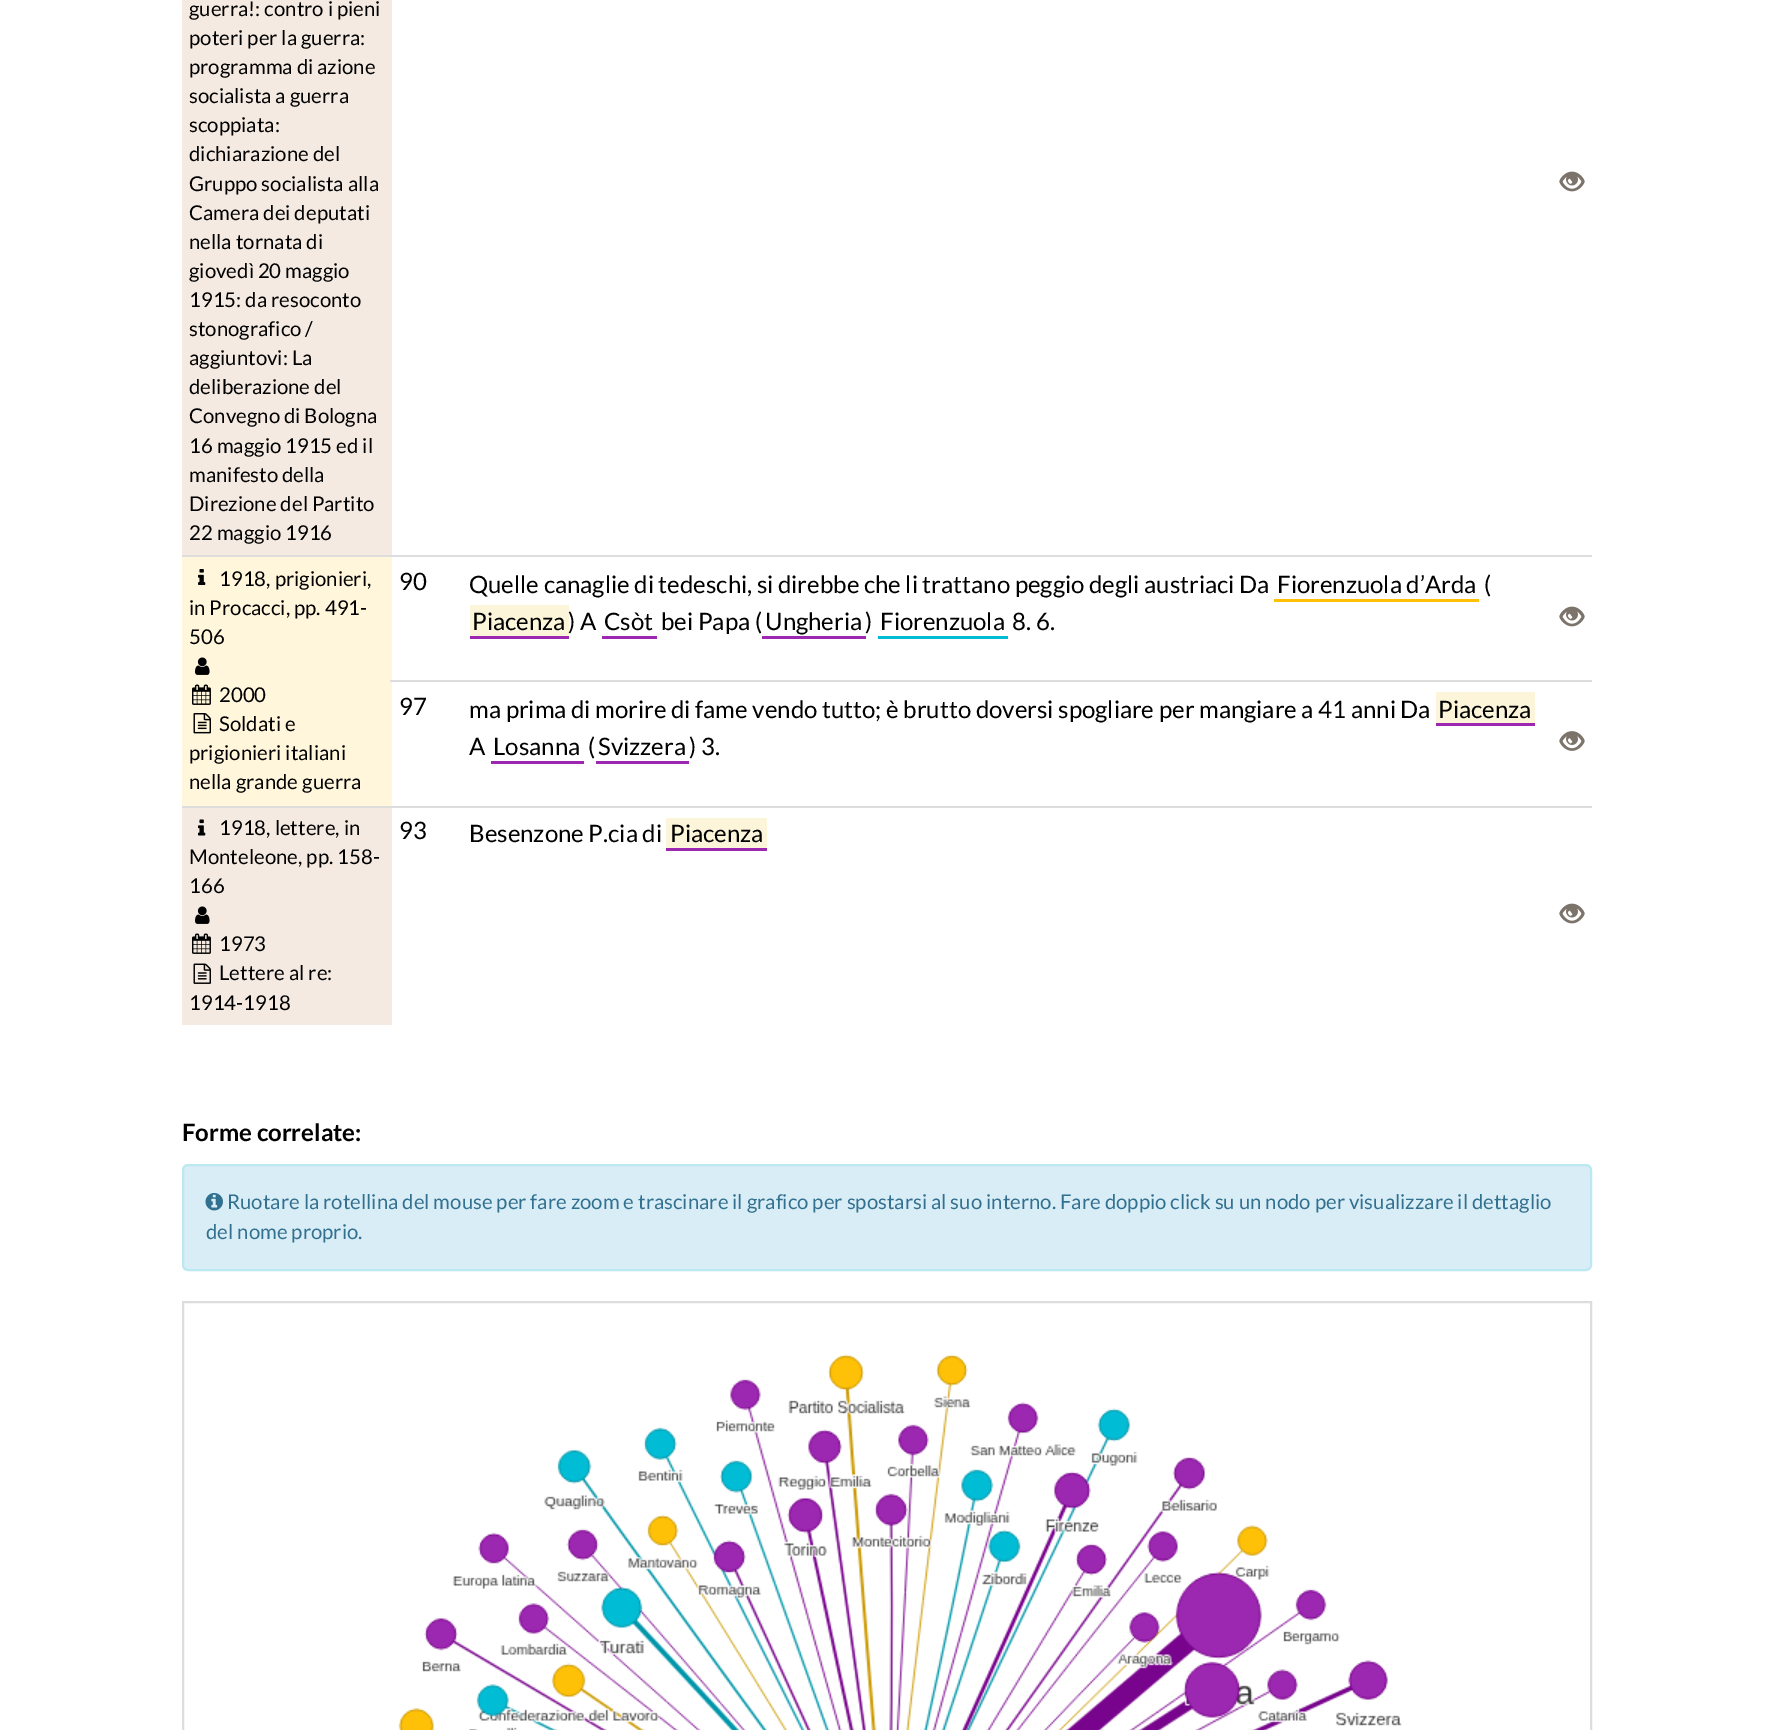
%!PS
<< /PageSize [1773 1730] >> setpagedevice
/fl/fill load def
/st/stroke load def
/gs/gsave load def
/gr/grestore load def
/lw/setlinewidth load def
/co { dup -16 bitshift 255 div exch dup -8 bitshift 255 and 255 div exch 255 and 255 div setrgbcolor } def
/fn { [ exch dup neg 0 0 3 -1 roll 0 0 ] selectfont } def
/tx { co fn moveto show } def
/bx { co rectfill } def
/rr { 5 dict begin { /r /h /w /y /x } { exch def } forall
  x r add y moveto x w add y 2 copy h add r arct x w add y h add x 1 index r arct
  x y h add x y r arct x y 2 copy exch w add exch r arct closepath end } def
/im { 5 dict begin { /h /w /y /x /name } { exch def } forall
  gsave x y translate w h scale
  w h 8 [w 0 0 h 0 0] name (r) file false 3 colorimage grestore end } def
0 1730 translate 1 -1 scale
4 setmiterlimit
0 0 1773 1730 16#FFFFFF bx
182 0 210 555 16#F4EAE1 bx
(media/1.raw) 1559 171 26 21 im
182 555 1410 2 16#DDDDDD bx
(media/1.raw) 1559 606 26 21 im
182 557 210 249 16#FFF6DC bx
(media/2.raw) 198 569 8 16 im
(media/3.raw) 195 657 15 18 im
(media/4.raw) 192 684 19 21 im
(media/5.raw) 193 713 18 21 im
1274 599 205 3 16#FFC107 bx
470 605 99 31 16#FCF5DA bx
470 636 99 3 16#9C27B0 bx
602 636 55 3 16#9C27B0 bx
762 636 104 3 16#9C27B0 bx
878 636 130 3 16#00BCD4 bx
390 680 1202 2 16#DDDDDD bx
(media/6.raw) 1559 731 26 20 im
1436 692 99 31 16#FCF5DA bx
1436 723 99 3 16#9C27B0 bx
491 761 93 3 16#9C27B0 bx
596 761 93 3 16#9C27B0 bx
182 806 1410 2 16#DDDDDD bx
(media/1.raw) 1559 903 26 21 im
182 808 210 217 16#F4EAE1 bx
(media/7.raw) 198 819 8 17 im
(media/8.raw) 195 906 15 18 im
(media/9.raw) 192 933 19 21 im
(media/10.raw) 193 963 18 21 im
666 818 101 30 16#FCF5DA bx
666 848 101 3 16#9C27B0 bx
16#D9EDF7 co
183 1165 1408 105 5 rr gs fl gr
16#BCE8F1 co
2 lw
st
(media/11.raw) 205 1193 18 18 im
16#DDDDDD co
183 1302 1408 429 rectstroke
(media/12.raw) 398 1354 1004 376 im
(guerra!: contro i pieni) 189 16 /Lato-Regular 20.4 16#000000 tx
(poteri per la guerra:) 189 45 /Lato-Regular 20.4 16#000000 tx
(programma di azione) 189 74 /Lato-Regular 20.4 16#000000 tx
(socialista a guerra) 189 103 /Lato-Regular 20.4 16#000000 tx
(scoppiata:) 189 132 /Lato-Regular 20.4 16#000000 tx
(dichiarazione del) 189 161 /Lato-Regular 20.4 16#000000 tx
(Gruppo socialista alla) 189 191 /Lato-Regular 20.4 16#000000 tx
(Camera dei deputati) 189 220 /Lato-Regular 20.4 16#000000 tx
(nella tornata di) 189 249 /Lato-Regular 20.4 16#000000 tx
(giovedì 20 maggio) 189 278 /Lato-Regular 20.4 16#000000 tx
(1915: da resoconto) 189 307 /Lato-Regular 20.4 16#000000 tx
(stonografico /) 189 336 /Lato-Regular 20.4 16#000000 tx
(aggiuntovi: La) 189 365 /Lato-Regular 20.4 16#000000 tx
(deliberazione del) 189 394 /Lato-Regular 20.4 16#000000 tx
(Convegno di Bologna) 189 423 /Lato-Regular 20.4 16#000000 tx
(16 maggio 1915 ed il) 189 453 /Lato-Regular 20.4 16#000000 tx
(manifesto della) 189 482 /Lato-Regular 20.4 16#000000 tx
(Direzione del Partito) 189 511 /Lato-Regular 20.4 16#000000 tx
(22 maggio 1916) 189 540 /Lato-Regular 20.4 16#000000 tx
(1918, prigionieri,) 219 586 /Lato-Regular 20.4 16#000000 tx
(in Procacci, pp. 491-) 189 615 /Lato-Regular 20.4 16#000000 tx
(506) 189 644 /Lato-Regular 20.4 16#000000 tx
(2000) 219 702 /Lato-Regular 20.4 16#000000 tx
(Soldati e) 219 731 /Lato-Regular 20.4 16#000000 tx
(prigionieri italiani) 189 760 /Lato-Regular 20.4 16#000000 tx
(nella grande guerra) 189 789 /Lato-Regular 20.4 16#000000 tx
(90) 399 590 /Lato-Regular 24 16#000000 tx
(Quelle canaglie di tedeschi, si direbbe che li trattano peggio degli austriaci Da) 469 593 /Lato-Regular 24 16#000000 tx
(Fiorenzuola d’Arda) 1277 593 /Lato-Regular 24 16#000000 tx
(\() 1484 593 /Lato-Regular 24 16#000000 tx
(Piacenza) 472 630 /Lato-Regular 24 16#000000 tx
(\) A) 568 630 /Lato-Regular 24 16#000000 tx
(Csòt) 604 630 /Lato-Regular 24 16#000000 tx
(bei Papa \() 661 630 /Lato-Regular 24 16#000000 tx
(Ungheria) 765 630 /Lato-Regular 24 16#000000 tx
(\)) 865 630 /Lato-Regular 24 16#000000 tx
(Fiorenzuola) 880 630 /Lato-Regular 24 16#000000 tx
(8. 6.) 1012 630 /Lato-Regular 24 16#000000 tx
(97) 399 715 /Lato-Regular 24 16#000000 tx
(ma prima di morire di fame vendo tutto; è brutto doversi spogliare per mangiare a 41 anni Da) 469 718 /Lato-Regular 24 16#000000 tx
(Piacenza) 1438 718 /Lato-Regular 24 16#000000 tx
(A) 469 755 /Lato-Regular 24 16#000000 tx
(Losanna) 493 755 /Lato-Regular 24 16#000000 tx
(\() 588 755 /Lato-Regular 24 16#000000 tx
(Svizzera) 598 755 /Lato-Regular 24 16#000000 tx
(\) 3.) 689 755 /Lato-Regular 24 16#000000 tx
(1918, lettere, in) 219 835 /Lato-Regular 20.4 16#000000 tx
(Monteleone, pp. 158-) 189 864 /Lato-Regular 20.4 16#000000 tx
(166) 189 893 /Lato-Regular 20.4 16#000000 tx
(1973) 219 951 /Lato-Regular 20.4 16#000000 tx
(Lettere al re:) 219 980 /Lato-Regular 20.4 16#000000 tx
(1914-1918) 189 1010 /Lato-Regular 20.4 16#000000 tx
(93) 399 839 /Lato-Regular 24 16#000000 tx
(Besenzone P.cia di) 469 842 /Lato-Regular 24 16#000000 tx
(Piacenza) 670 842 /Lato-Regular 24 16#000000 tx
(Forme correlate:) 182 1141 /Lato-Bold 24 16#000000 tx
(Ruotare la rotellina del mouse per fare zoom e trascinare il grafico per spostarsi al suo interno. Fare doppio click su un nodo per visualizzare il dettaglio) 227 1209 /Lato-Regular 20.4 16#31708F tx
(del nome proprio.) 206 1239 /Lato-Regular 20.4 16#31708F tx
showpage
